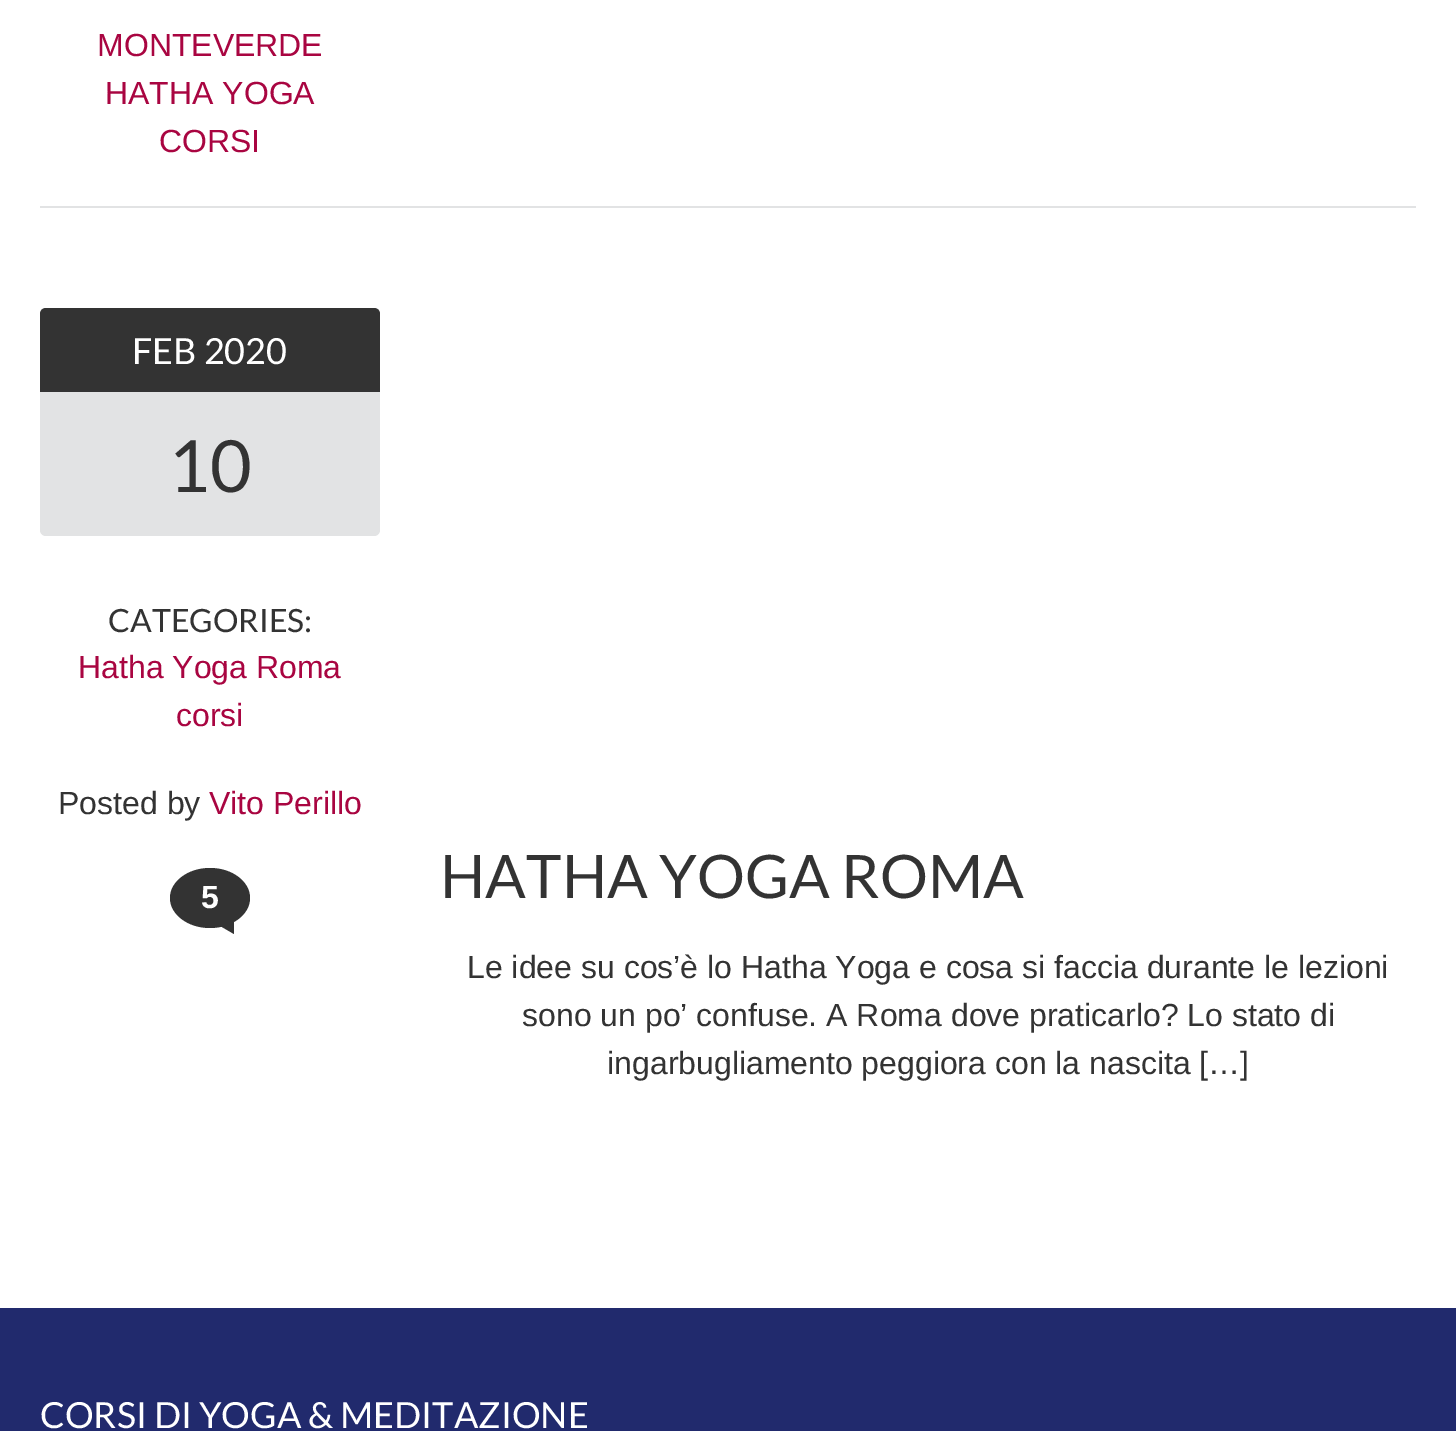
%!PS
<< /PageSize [1456 1431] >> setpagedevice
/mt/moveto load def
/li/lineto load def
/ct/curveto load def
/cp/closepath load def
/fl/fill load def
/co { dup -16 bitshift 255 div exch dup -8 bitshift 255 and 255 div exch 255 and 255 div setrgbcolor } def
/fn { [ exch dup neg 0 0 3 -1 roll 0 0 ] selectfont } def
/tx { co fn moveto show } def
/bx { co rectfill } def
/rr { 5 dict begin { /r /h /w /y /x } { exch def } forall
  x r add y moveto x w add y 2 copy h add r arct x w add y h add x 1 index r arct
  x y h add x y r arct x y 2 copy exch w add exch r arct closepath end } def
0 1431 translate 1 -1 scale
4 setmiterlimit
0 0 1456 1431 16#FFFFFF bx
40 206 1376 2 16#E2E3E4 bx
40 308 340 228 6 rr fl
16#333333 co
46 308 mt 374 308 li 377.5 308 380 310.5 380 314 ct 380 392 li 40 392 li 40 314 li 40 310.5 42.5 308 46 308 ct cp fl
234 920 mt 234 934 li 210 920 li cp fl
210 868 mt 232 868 250 881.5 250 898 ct 250 914.5 232 928 210 928 ct 188 928 170 914.5 170 898 ct 170 881.5 188 868 210 868 ct cp fl
0 1308 1456 123 16#212A6D bx
(MONTEVERDE) 97 56 /LiberationSans-Regular 32 16#A90541 tx
(HATHA YOGA) 105 104 /LiberationSans-Regular 32 16#A90541 tx
(CORSI) 159 152 /LiberationSans-Regular 32 16#A90541 tx
(FEB 2020) 132 364 /Lato-Regular 36 16#FFFFFF tx
(10) 168 492 /Lato-Regular 72 16#333333 tx
(CATEGORIES:) 108 632 /Lato-Regular 32 16#333333 tx
(Hatha Yoga Roma) 78 678 /LiberationSans-Regular 32 16#A90541 tx
(corsi) 176 726 /LiberationSans-Regular 32 16#A90541 tx
(Posted by) 58 814 /LiberationSans-Regular 32 16#333333 tx
(Vito Perillo) 209 814 /LiberationSans-Regular 32 16#A90541 tx
(5) 201 908 /LiberationSans-Bold 32 16#FFFFFF tx
(HATHA YOGA ROMA) 440 898 /Lato-Regular 60 16#333333 tx
(Le idee su cos’è lo Hatha Yoga e cosa si faccia durante le lezioni) 467 978 /LiberationSans-Regular 32 16#333333 tx
(sono un po’ confuse. A Roma dove praticarlo? Lo stato di) 522 1026 /LiberationSans-Regular 32 16#333333 tx
(ingarbugliamento peggiora con la nascita […]) 607 1074 /LiberationSans-Regular 32 16#333333 tx
(CORSI DI YOGA & MEDITAZIONE) 40 1428 /Lato-Regular 36 16#FFFFFF tx
showpage
